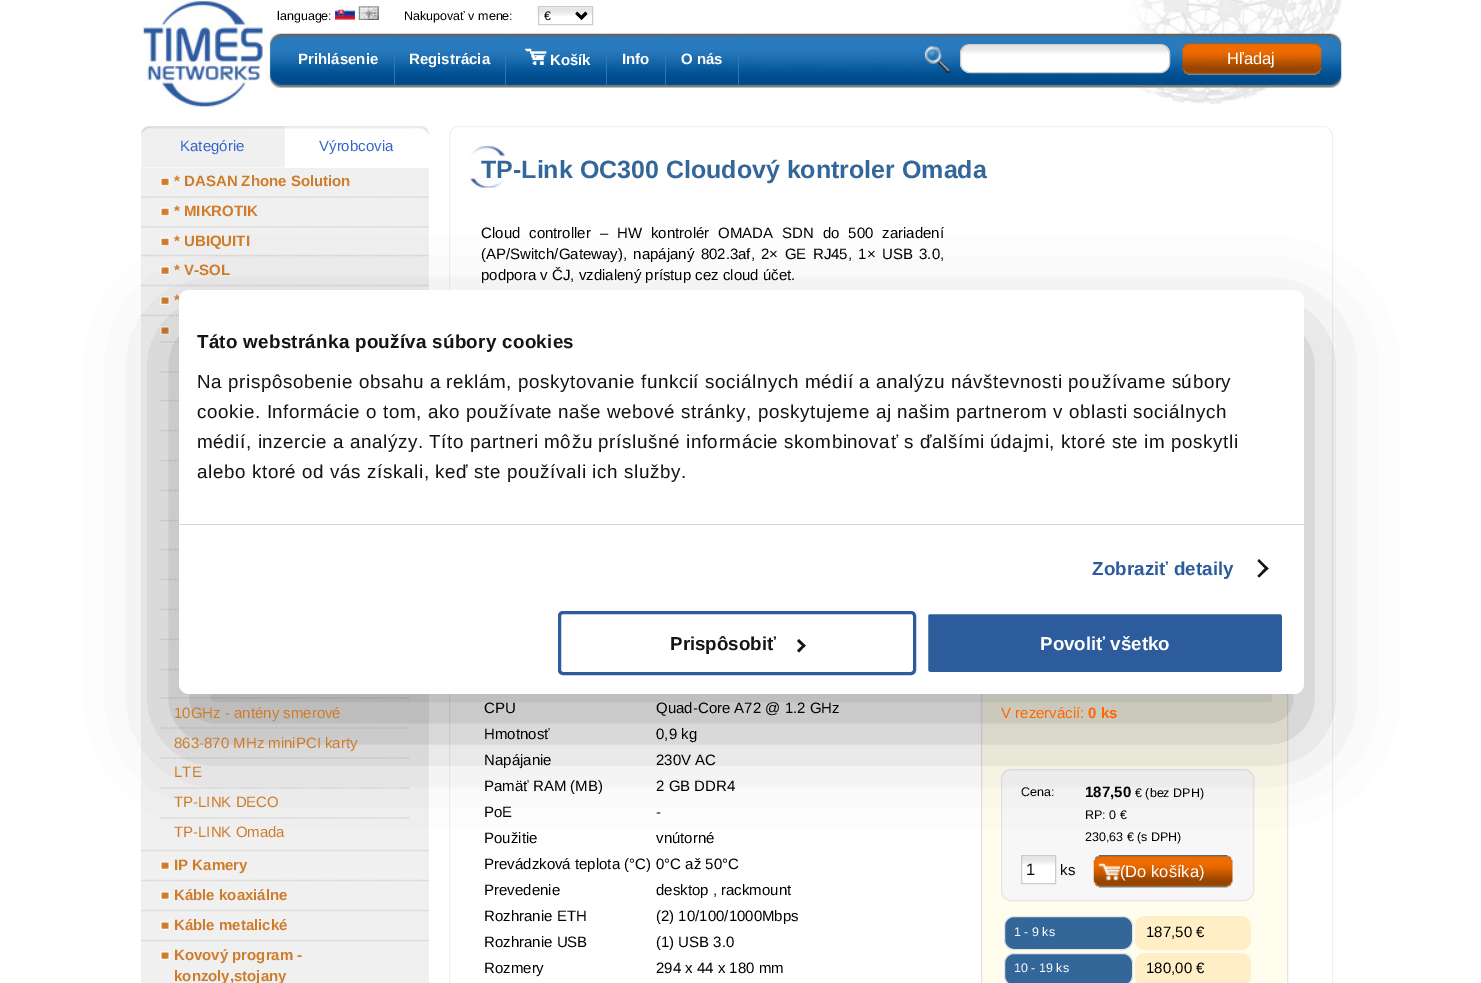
%!PS
<< /PageSize [1481 983] /PageUsesTransparency true >> setpagedevice
/mt/moveto load def
/li/lineto load def
/cp/closepath load def
/fl/fill load def
/st/stroke load def
/gs/gsave load def
/gr/grestore load def
/lw/setlinewidth load def
/co { dup -16 bitshift 255 div exch dup -8 bitshift 255 and 255 div exch 255 and 255 div setrgbcolor } def
/fn { [ exch dup neg 0 0 3 -1 roll 0 0 ] selectfont } def
/tx { co fn moveto show } def
/bx { co rectfill } def
/al { dup .setfillconstantalpha .setstrokeconstantalpha } def
/rr { 5 dict begin { /r /h /w /y /x } { exch def } forall
  x r add y moveto x w add y 2 copy h add r arct x w add y h add x 1 index r arct
  x y h add x y r arct x y 2 copy exch w add exch r arct closepath end } def
/sh { 12 dict begin { /a /b /q /h /w /y /x } { exch def } forall gsave /was 0 def
  9 -2 -9 { dup b mul 4 div /e exch def 1 sub .425 mul 2.718 exch exp 1 add a .99 .min exch div /now exch def
    1 1 now sub 1 was sub div sub al /was now def
    w h .min e 2 mul add 0 gt { x e sub y e sub w e 2 mul add h e 2 mul add
      q e add b .6 mul add w h .min 2 div e add .min 0 .max rr fill } if } for grestore end } def
/im { 5 dict begin { /h /w /y /x /name } { exch def } forall
  gsave x y translate w h scale
  w h 8 [w 0 0 h 0 0] name (r) file false 3 colorimage grestore end } def
0 .pushpdf14devicefilter
0 983 translate 1 -1 scale
4 setmiterlimit
0 0 1481 983 16#FFFFFF bx
(media/1.raw) 265 0 1077 105 im
(media/2.raw) 141 0 124 108 im
(media/3.raw) 335 6 20 14 im
(media/4.raw) 358 6 21 14 im
(media/5.raw) 537 7 55 13 im
16#CCCCCC co
538.5 6.5 54 18 rectstroke
16#000000 co
2.5 lw
576.5 13 mt 581.5 18 li 586.5 13 li st
394 34 1 51 16#297ABD bx
505 34 1 51 16#297ABD bx
606 34 1 52 16#297ABD bx
(media/6.raw) 524 48 23 17 im
665 34 1 51 16#297ABD bx
738 34 1 51 16#297ABD bx
(media/7.raw) 960 45 210 28 im
16#CCCCCC co
1 lw
960.5 44.5 209 28 9.5 rr st
(media/8.raw) 1182 42 140 33 im
(media/9.raw) 141 126 144 42 im
(media/10.raw) 285 126 144 10 im
141 168 288 815 16#F0F0F0 bx
16#CBCBCB co
1.2 lw
[1.25 1.25] 0 setdash
141 197 mt 429 197 li st
(media/11.raw) 160 177 10 9 im
141 227 mt 429 227 li st
(media/11.raw) 160 207 10 9 im
141 255.5 mt 429 255.5 li st
(media/11.raw) 160 237 10 9 im
141 285.5 mt 429 285.5 li st
(media/12.raw) 160 266 10 9 im
141 315.5 mt 429 315.5 li st
(media/12.raw) 160 296 10 9 im
141 850.5 mt 429 850.5 li st
(media/12.raw) 160 326 10 9 im
16#CFCFCF co
160 342 mt 410 342 li st
160 372 mt 410 372 li st
160 400.5 mt 410 400.5 li st
160 430.5 mt 410 430.5 li st
160 460.5 mt 410 460.5 li st
160 490.5 mt 410 490.5 li st
160 520.5 mt 410 520.5 li st
160 549.5 mt 410 549.5 li st
160 579.5 mt 410 579.5 li st
160 609.5 mt 410 609.5 li st
160 639.5 mt 410 639.5 li st
160 669.5 mt 410 669.5 li st
160 698 mt 410 698 li st
160 728 mt 410 728 li st
160 758 mt 410 758 li st
160 788 mt 410 788 li st
160 818 mt 410 818 li st
16#CBCBCB co
141 880.5 mt 429 880.5 li st
(media/12.raw) 160 861 10 9 im
141 910.5 mt 429 910.5 li st
(media/12.raw) 160 891 10 9 im
141 940.5 mt 429 940.5 li st
(media/12.raw) 160 921 10 9 im
(media/12.raw) 160 951 10 9 im
16#F0F0F0 co
1 lw
[] 0 setdash
449.5 126.5 883 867 9.5 rr st
(media/13.raw) 469 146 36 42 im
982 694 305 289 16#FFFDED bx
16#E4E4E4 co
981.5 563.5 306 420 rectstroke
16#F7F7F7 co
1001.5 769.5 252 131 9.5 rr gs fl gr
16#E4E4E4 co
st
1022 856 33 27 16#FFFFFF bx
(media/14.raw) 1022 856 35 9 im
16#CCCCCC co
1021.5 855.5 34 28 rectstroke
(media/15.raw) 1093 855 140 33 im
16#336699 co
1004.5 916.5 128 33 9.5 rr gs fl gr
16#E3E3E3 co
st
16#FFEEC6 co
1135 916 116 34 10 rr fl
16#336699 co
1004.5 953.5 128 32 9.5 rr gs fl gr
16#E3E3E3 co
st
16#FFEEC6 co
1135 953 116 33 10 rr fl
16#000000 co
179 330 1125 404 10 42.5 .3 sh
(language:) 277 20 /LiberationSans-Regular 12.5 16#000000 tx
(Nakupovať v mene:) 404 20 /LiberationSans-Regular 12.5 16#000000 tx
(€) 544 20 /LiberationSans-Regular 12.5 16#000000 tx
(Prihlásenie) 298 64 /LiberationSans-Bold 15 16#FFFFFF tx
(Registrácia) 409 64 /LiberationSans-Bold 15 16#FFFFFF tx
(Košík) 550 65 /LiberationSans-Bold 15 16#FFFFFF tx
(Info) 622 64 /LiberationSans-Bold 15 16#FFFFFF tx
(O nás) 681 64 /LiberationSans-Bold 15 16#FFFFFF tx
(Hľadaj) 1227 64 /LiberationSans-Regular 16.5 16#FFFFFF tx
(Kategórie) 180 151 /LiberationSans-Regular 15 16#3366CC tx
(Výrobcovia) 319 151 /LiberationSans-Regular 15 16#3366CC tx
(* DASAN Zhone Solution) 174 186 /LiberationSans-Bold 15 16#CF7C2A tx
(* MIKROTIK) 174 216 /LiberationSans-Bold 15 16#CF7C2A tx
(* UBIQUITI) 174 246 /LiberationSans-Bold 15 16#CF7C2A tx
(* V-SOL) 174 275 /LiberationSans-Bold 15 16#CF7C2A tx
(*) 174 305 /LiberationSans-Bold 15 16#CF7C2A tx
(10GHz - antény smerové) 174 718 /LiberationSans-Regular 15 16#CF7C2A tx
(863-870 MHz miniPCI karty) 174 748 /LiberationSans-Regular 15 16#CF7C2A tx
(LTE) 174 777 /LiberationSans-Regular 15 16#CF7C2A tx
(TP-LINK DECO) 174 807 /LiberationSans-Regular 15 16#CF7C2A tx
(TP-LINK Omada) 174 837 /LiberationSans-Regular 15 16#CF7C2A tx
(IP Kamery) 174 870 /LiberationSans-Bold 15 16#CF7C2A tx
(Káble koaxiálne) 174 900 /LiberationSans-Bold 15 16#CF7C2A tx
(Káble metalické) 174 930 /LiberationSans-Bold 15 16#CF7C2A tx
(Kovový program -) 174 960 /LiberationSans-Bold 15 16#CF7C2A tx
(konzoly,stojany) 174 981 /LiberationSans-Bold 15 16#CF7C2A tx
(TP-Link OC300 Cloudový kontroler Omada) 481 178 /LiberationSans-Bold 25 16#336699 tx
/LiberationSans-Regular 15 fn
16#000000 co
481 238 mt 4.75 0 32 (Cloud controller – HW kontrolér OMADA SDN do 500 zariadení) widthshow
481 259 mt 2.25 0 32 (\(AP/Switch/Gateway\), napájaný 802.3af, 2× GE RJ45, 1× USB 3.0,) widthshow
(podpora v ČJ, vzdialený prístup cez cloud účet.) 481 280 /LiberationSans-Regular 15 16#000000 tx
(CPU) 484 713 /LiberationSans-Regular 15 16#000000 tx
(Quad-Core A72 @ 1.2 GHz) 656 713 /LiberationSans-Regular 15 16#000000 tx
(Hmotnosť) 484 739 /LiberationSans-Regular 15 16#000000 tx
(0,9 kg) 656 739 /LiberationSans-Regular 15 16#000000 tx
(Napájanie) 484 765 /LiberationSans-Regular 15 16#000000 tx
(230V AC) 656 765 /LiberationSans-Regular 15 16#000000 tx
(Pamäť RAM \(MB\)) 484 791 /LiberationSans-Regular 15 16#000000 tx
(2 GB DDR4) 656 791 /LiberationSans-Regular 15 16#000000 tx
(PoE) 484 817 /LiberationSans-Regular 15 16#000000 tx
(-) 656 817 /LiberationSans-Regular 15 16#000000 tx
(Použitie) 484 843 /LiberationSans-Regular 15 16#000000 tx
(vnútorné) 656 843 /LiberationSans-Regular 15 16#000000 tx
(Prevádzková teplota \(°C\)) 484 869 /LiberationSans-Regular 15 16#000000 tx
(0°C až 50°C) 656 869 /LiberationSans-Regular 15 16#000000 tx
(Prevedenie) 484 895 /LiberationSans-Regular 15 16#000000 tx
(desktop , rackmount) 656 895 /LiberationSans-Regular 15 16#000000 tx
(Rozhranie ETH) 484 921 /LiberationSans-Regular 15 16#000000 tx
(\(2\) 10/100/1000Mbps) 656 921 /LiberationSans-Regular 15 16#000000 tx
(Rozhranie USB) 484 947 /LiberationSans-Regular 15 16#000000 tx
(\(1\) USB 3.0) 656 947 /LiberationSans-Regular 15 16#000000 tx
(Rozmery) 484 973 /LiberationSans-Regular 15 16#000000 tx
(294 x 44 x 180 mm) 656 973 /LiberationSans-Regular 15 16#000000 tx
(V rezervácií:) 1001 718 /LiberationSans-Regular 15 16#FF6600 tx
(0 ks) 1088 718 /LiberationSans-Bold 15 16#FF6600 tx
(Cena:) 1021 796 /LiberationSans-Regular 12.5 16#000000 tx
(187,50) 1085 797 /LiberationSans-Bold 15 16#000000 tx
(€ \(bez DPH\)) 1135 797 /LiberationSans-Regular 12.5 16#000000 tx
(RP: 0 €) 1085 819 /LiberationSans-Regular 12.5 16#000000 tx
(230,63 € \(s DPH\)) 1085 841 /LiberationSans-Regular 12.5 16#000000 tx
(1) 1026 875 /LiberationSans-Regular 16.5 16#000000 tx
(ks) 1060 875 /LiberationSans-Regular 15 16#000000 tx
(\(Do košíka\)) 1120 877 /LiberationSans-Regular 16.5 16#FFFFFF tx
(1 - 9 ks) 1014 936 /LiberationSans-Regular 12.5 16#FFFFFF tx
(187,50 €) 1146 937 /LiberationSans-Regular 15 16#000000 tx
(10 - 19 ks) 1014 972 /LiberationSans-Regular 12.5 16#FFFFFF tx
(180,00 €) 1146 973 /LiberationSans-Regular 15 16#000000 tx
16#FFFFFF co
179 290 1125 404 10 rr fl
179 524 1125 1 16#D6D6D6 bx
/LiberationSans-Bold 18.75 fn
16#141414 co
197 348 mt .3 0 (Táto webstránka používa súbory cookies) ashow
/LiberationSans-Regular 18.75 fn
197 388 mt .62 0 (Na prispôsobenie obsahu a reklám, poskytovanie funkcií sociálnych médií a analýzu návštevnosti používame súbory) ashow
197 418 mt .62 0 (cookie. Informácie o tom, ako používate naše webové stránky, poskytujeme aj našim partnerom v oblasti sociálnych) ashow
197 448 mt .62 0 (médií, inzercie a analýzy. Títo partneri môžu príslušné informácie skombinovať s ďalšími údajmi, ktoré ste im poskytli) ashow
197 478 mt .62 0 (alebo ktoré od vás získali, keď ste používali ich služby.) ashow
/LiberationSans-Bold 18.75 fn
16#2C5C9C co
1092 575 mt .1 0 (Zobraziť detaily) ashow
16#141414 co
1259 559 mt 1268.5 568.5 li 1266.5 570 li 1257.5 561 li cp fl
1266.5 566.5 mt 1268.5 568.5 li 1259 577.5 li 1257.5 576 li cp fl
16#2C5C9C co
3 lw
559.5 612.5 355 61 3.5 rr st
(Prispôsobiť) 670 650 /LiberationSans-Bold 18.75 16#141414 tx
799 639 mt 805.5 645.5 li 804 647.5 li 797 641 li cp fl
804 644 mt 805.5 645.5 li 799 652.5 li 797 650.5 li cp fl
16#2C5C9C co
926.5 612.5 357 61 3.5 rr gs fl gr
16#FFFFFF co
st
(Povoliť všetko) 1040 650 /LiberationSans-Bold 18.75 16#FFFFFF tx
.poppdf14devicefilter showpage
